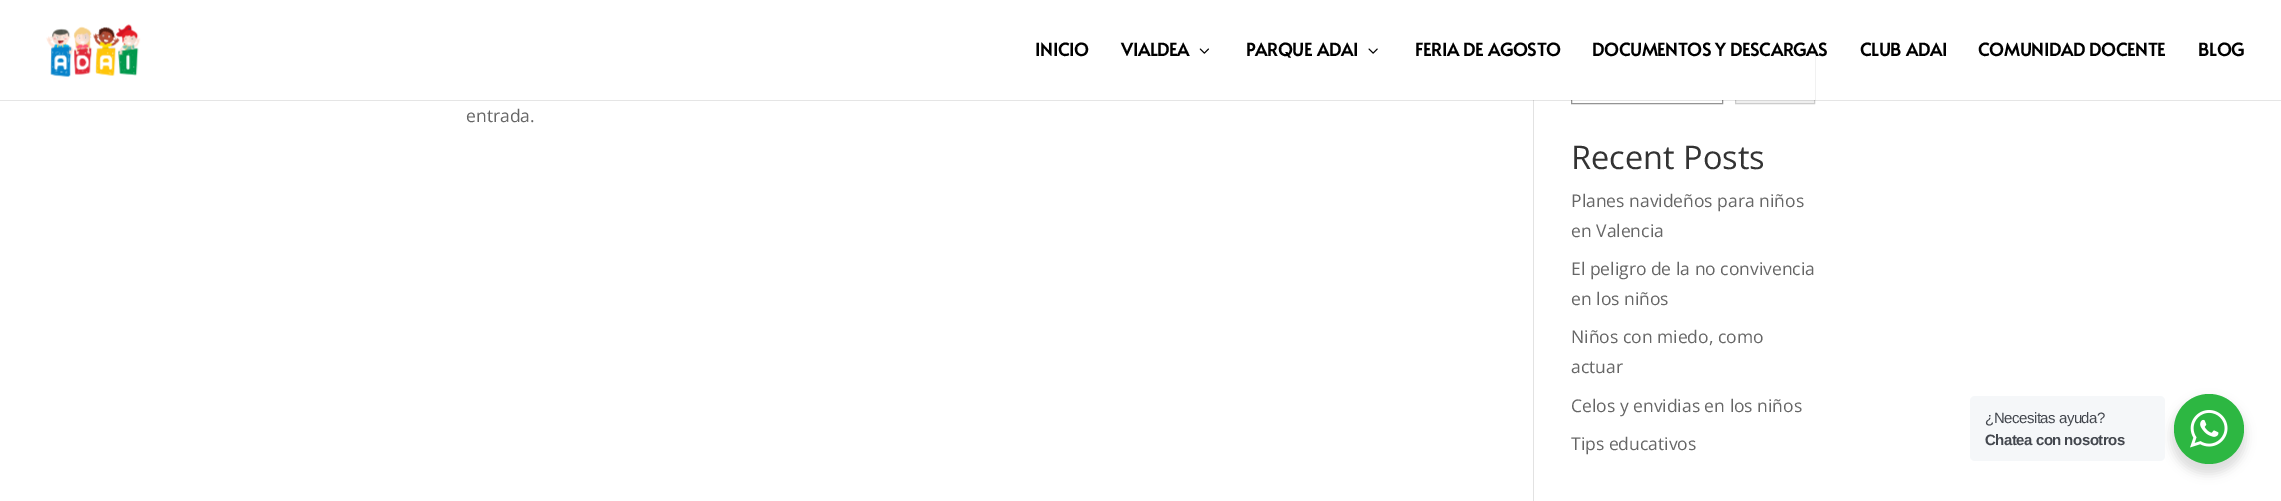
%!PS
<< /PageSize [2281 501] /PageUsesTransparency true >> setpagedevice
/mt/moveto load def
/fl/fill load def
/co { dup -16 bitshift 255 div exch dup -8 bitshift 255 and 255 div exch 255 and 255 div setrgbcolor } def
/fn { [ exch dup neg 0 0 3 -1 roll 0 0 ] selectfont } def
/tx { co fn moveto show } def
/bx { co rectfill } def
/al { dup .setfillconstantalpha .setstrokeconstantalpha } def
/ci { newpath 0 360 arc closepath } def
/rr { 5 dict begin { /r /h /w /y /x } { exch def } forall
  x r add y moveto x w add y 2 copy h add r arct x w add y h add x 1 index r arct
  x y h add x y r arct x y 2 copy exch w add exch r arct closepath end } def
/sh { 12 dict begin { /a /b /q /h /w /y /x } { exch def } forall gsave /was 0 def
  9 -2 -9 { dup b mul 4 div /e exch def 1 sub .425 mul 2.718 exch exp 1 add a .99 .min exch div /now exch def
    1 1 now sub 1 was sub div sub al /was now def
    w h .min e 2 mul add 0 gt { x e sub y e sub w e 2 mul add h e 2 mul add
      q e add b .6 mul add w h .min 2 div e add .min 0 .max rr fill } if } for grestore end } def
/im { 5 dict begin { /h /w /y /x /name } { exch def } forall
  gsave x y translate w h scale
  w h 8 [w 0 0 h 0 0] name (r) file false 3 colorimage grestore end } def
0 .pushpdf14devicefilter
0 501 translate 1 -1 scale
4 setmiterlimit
0 0 2281 501 16#FFFFFF bx
1533 100 1 401 16#E2E2E2 bx
16#949494 co
1571.5 51.5 151 52 rectstroke
1736 100 78 3 16#EFEFEF bx
16#CCCCCC co
1735.5 51.5 79 52 rectstroke
0.1 al
0 100 2281 1 16#000000 bx
1 al
1571 51 244 49 16#FFFFFF bx
(media/1.raw) 46 24 95 53 im
(media/2.raw) 1199 48 10 6 im
(media/3.raw) 1368 48 10 6 im
16#000000 co
2171 399 75 75 37.5 5 .14 sh
16#F5F7F9 co
1970 396 195 65 5 rr fl
16#2DB742 co
2209 429 35 ci fl
(media/4.raw) 2190 410 38 38 im
(INICIO) 1035 56 /Alata-Bold 17.5 16#000000 tx
(VIALDEA) 1121 56 /Alata-Bold 17.5 16#000000 tx
(PARQUE ADAI) 1246 56 /Alata-Bold 17.5 16#000000 tx
(FERIA DE AGOSTO) 1415 56 /Alata-Bold 17.5 16#000000 tx
(DOCUMENTOS Y DESCARGAS) 1592 56 /Alata-Bold 17.5 16#000000 tx
(CLUB ADAI) 1860 56 /Alata-Bold 17.5 16#000000 tx
(COMUNIDAD DOCENTE) 1978 56 /Alata-Bold 17.5 16#000000 tx
(BLOG) 2198 56 /Alata-Bold 17.5 16#000000 tx
(entrada.) 466 122 /OpenSans-Regular 17.5 16#666666 tx
(Recent Posts) 1571 169 /OpenSans-Regular 32.5 16#333333 tx
(Planes navideños para niños) 1571 207 /OpenSans-Regular 17.5 16#666666 tx
(en Valencia) 1571 237 /OpenSans-Regular 17.5 16#666666 tx
(El peligro de la no convivencia) 1571 275 /OpenSans-Regular 17.5 16#666666 tx
(en los niños) 1571 305 /OpenSans-Regular 17.5 16#666666 tx
(Niños con miedo, como) 1571 343 /OpenSans-Regular 17.5 16#666666 tx
(actuar) 1571 373 /OpenSans-Regular 17.5 16#666666 tx
(Celos y envidias en los niños) 1571 412 /OpenSans-Regular 17.5 16#666666 tx
(Tips educativos) 1571 450 /OpenSans-Regular 17.5 16#666666 tx
/LiberationSans-Regular 15 fn
16#43474E co
1985 423 mt -.5 0 (¿Necesitas ayuda?) ashow
/LiberationSans-Bold 15 fn
1985 445 mt -.5 0 (Chatea con nosotros) ashow
.poppdf14devicefilter showpage
